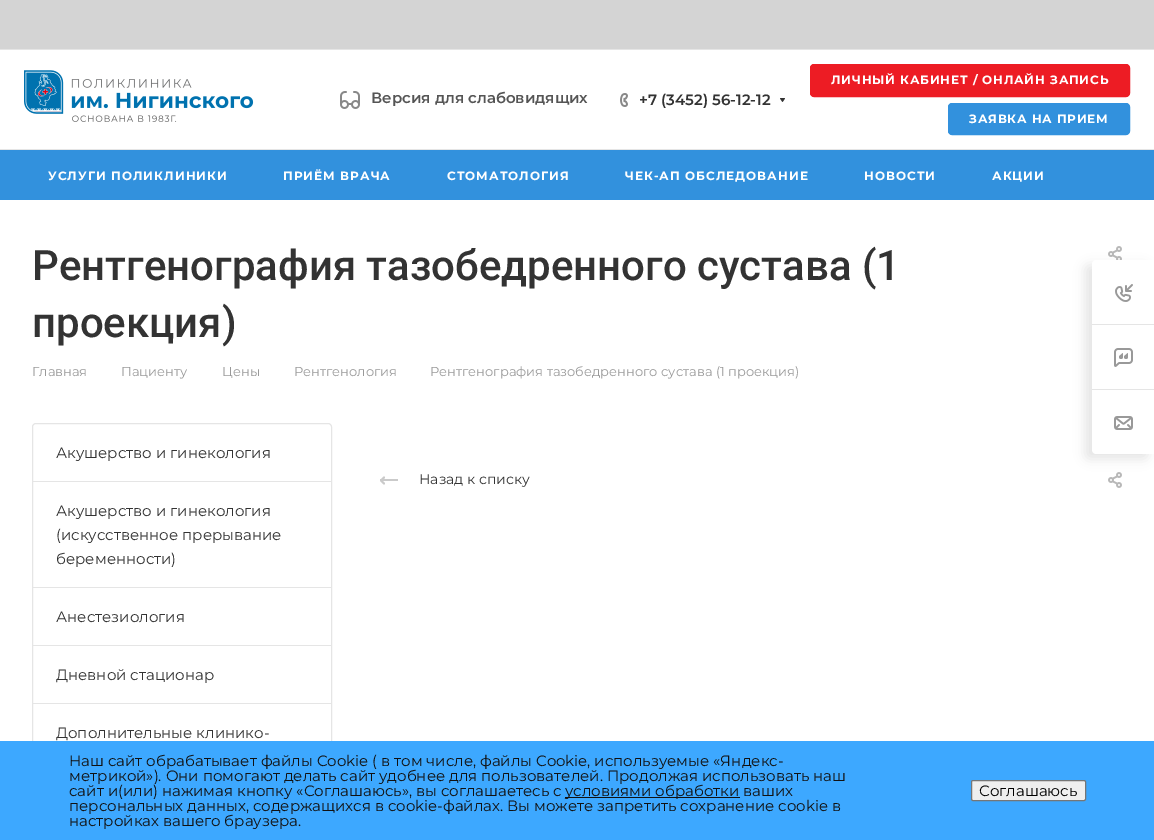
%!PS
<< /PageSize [1154 840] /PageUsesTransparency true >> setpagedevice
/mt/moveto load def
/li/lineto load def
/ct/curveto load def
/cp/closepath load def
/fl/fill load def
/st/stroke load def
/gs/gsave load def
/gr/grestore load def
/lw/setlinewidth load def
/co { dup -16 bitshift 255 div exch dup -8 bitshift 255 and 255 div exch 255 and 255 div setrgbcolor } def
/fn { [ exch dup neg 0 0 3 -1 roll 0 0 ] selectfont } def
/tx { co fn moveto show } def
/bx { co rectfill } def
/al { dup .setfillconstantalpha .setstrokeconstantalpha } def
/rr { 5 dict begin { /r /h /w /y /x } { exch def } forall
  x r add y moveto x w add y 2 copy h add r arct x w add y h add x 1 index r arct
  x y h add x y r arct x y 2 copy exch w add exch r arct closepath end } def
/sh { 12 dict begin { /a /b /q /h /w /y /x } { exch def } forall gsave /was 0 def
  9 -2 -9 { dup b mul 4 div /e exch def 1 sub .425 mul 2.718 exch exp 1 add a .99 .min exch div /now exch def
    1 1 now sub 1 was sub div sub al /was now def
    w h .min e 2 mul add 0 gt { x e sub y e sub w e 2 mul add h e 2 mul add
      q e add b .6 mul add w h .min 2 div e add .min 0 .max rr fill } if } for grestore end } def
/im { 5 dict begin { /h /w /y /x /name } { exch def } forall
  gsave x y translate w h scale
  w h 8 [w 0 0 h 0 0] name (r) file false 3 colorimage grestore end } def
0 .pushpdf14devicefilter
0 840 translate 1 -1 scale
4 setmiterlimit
0 0 1154 840 16#FFFFFF bx
0 0 1154 49 16#D4D4D4 bx
0 49 1154 1 16#E5E5E5 bx
0 149 1154 1 16#E5E5E5 bx
(media/1.raw) 24 70 230 52 im
(media/2.raw) 340 91 20 18 im
(media/3.raw) 620 93 8 14 im
(media/4.raw) 780 98 5 4 im
16#ED1C24 co
810.5 64.5 319 32 3.5 rr gs fl gr
st
16#3291DD co
948.5 103.5 181 31 3.5 rr gs fl gr
st
0 150 1154 50 16#3291DD bx
(media/5.raw) 1108 246 14 14 im
16#E5E5E5 co
32.5 423.5 299 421 3.5 rr st
33 481 298 1 16#E5E5E5 bx
33 587 298 1 16#E5E5E5 bx
33 645 298 1 16#E5E5E5 bx
33 703 298 1 16#E5E5E5 bx
16#CACACA co
2 lw
1 setlinecap
1 setlinejoin
384 483.5 mt 381 480.5 li 384 477.5 li st
380 479 18 2 16#CACACA bx
(media/6.raw) 1108 472 14 16 im
16#000000 co
1085 265 63 194 4 5.5 .1 sh
16#FFFFFF co
1096 260 mt 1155 260 li 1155 454 li 1096 454 li 1094 454 1092 452 1092 450 ct 1092 264 li 1092 262 1094 260 1096 260 ct cp fl
(media/7.raw) 1115 284 18 18 im
1092 324 62 1 16#E5E5E5 bx
(media/8.raw) 1114 348 19 19 im
1092 389 62 1 16#E5E5E5 bx
(media/9.raw) 1114 416 19 14 im
0 741 1154 99 16#3DA8FF bx
565 797 175 1 16#111111 bx
16#EFEFEF co
971.5 780.5 114 20 1.5 rr gs fl gr
16#767676 co
1 lw
0 setlinecap
0 setlinejoin
st
(Версия для слабовидящих) 371 103 /Montserrat-SemiBold 15 16#555555 tx
(+7 \(3452\) 56-12-12) 639 105 /Montserrat-SemiBold 15 16#333333 tx
/Montserrat-Bold 12 fn
16#FFFFFF co
831 84 mt .8 0 (ЛИЧНЫЙ КАБИНЕТ / ОНЛАЙН ЗАПИСЬ) ashow
969 123 mt .8 0 (ЗАЯВКА НА ПРИЕМ) ashow
48 180 mt 1 0 (УСЛУГИ ПОЛИКЛИНИКИ) ashow
283 180 mt 1 0 (ПРИЁМ ВРАЧА) ashow
447 180 mt 1 0 (СТОМАТОЛОГИЯ) ashow
625 180 mt 1 0 (ЧЕК-АП ОБСЛЕДОВАНИЕ) ashow
864 180 mt 1 0 (НОВОСТИ) ashow
992 180 mt 1 0 (АКЦИИ) ashow
(Рентгенография тазобедренного сустава \(1) 32 280 /Roboto-Medium 42 16#333333 tx
(проекция\)) 32 337 /Roboto-Medium 42 16#333333 tx
(Главная) 32 376 /Montserrat-Regular 13 16#999999 tx
(Пациенту) 121 376 /Montserrat-Regular 13 16#999999 tx
(Цены) 222 376 /Montserrat-Regular 13 16#999999 tx
(Рентгенология) 294 376 /Montserrat-Regular 13 16#999999 tx
(Рентгенография тазобедренного сустава \(1 проекция\)) 430 376 /Montserrat-Regular 13 16#999999 tx
(Акушерство и гинекология) 56 458 /Montserrat-Regular 15 16#333333 tx
(Акушерство и гинекология) 56 516 /Montserrat-Regular 15 16#333333 tx
(\(искусственное прерывание) 56 540 /Montserrat-Regular 15 16#333333 tx
(беременности\)) 56 564 /Montserrat-Regular 15 16#333333 tx
(Анестезиология) 56 622 /Montserrat-Regular 15 16#333333 tx
(Дневной стационар) 56 680 /Montserrat-Regular 15 16#333333 tx
(Дополнительные клинико-) 56 738 /Montserrat-Regular 15 16#333333 tx
(Назад к списку) 419 484 /Montserrat-Regular 14 16#333333 tx
(Наш сайт обрабатывает файлы Cookie \( в том числе, файлы Cookie, используемые «Яндекс-) 69 766 /Montserrat-Regular 15 16#111111 tx
(метрикой»\). Они помогают делать сайт удобнее для пользователей. Продолжая использовать наш) 69 781 /Montserrat-Regular 15 16#111111 tx
(сайт и\(или\) нажимая кнопку «Соглашаюсь», вы соглашаетесь с) 69 796 /Montserrat-Regular 15 16#111111 tx
(условиями обработки ваших) 565 796 /Montserrat-Regular 15 16#111111 tx
(персональных данных, содержащихся в cookie-файлах. Вы можете запретить сохранение cookie в) 69 811 /Montserrat-Regular 15 16#111111 tx
(настройках вашего браузера.) 69 826 /Montserrat-Regular 15 16#111111 tx
(Соглашаюсь) 979 796 /Montserrat-Regular 15 16#000000 tx
.poppdf14devicefilter showpage
